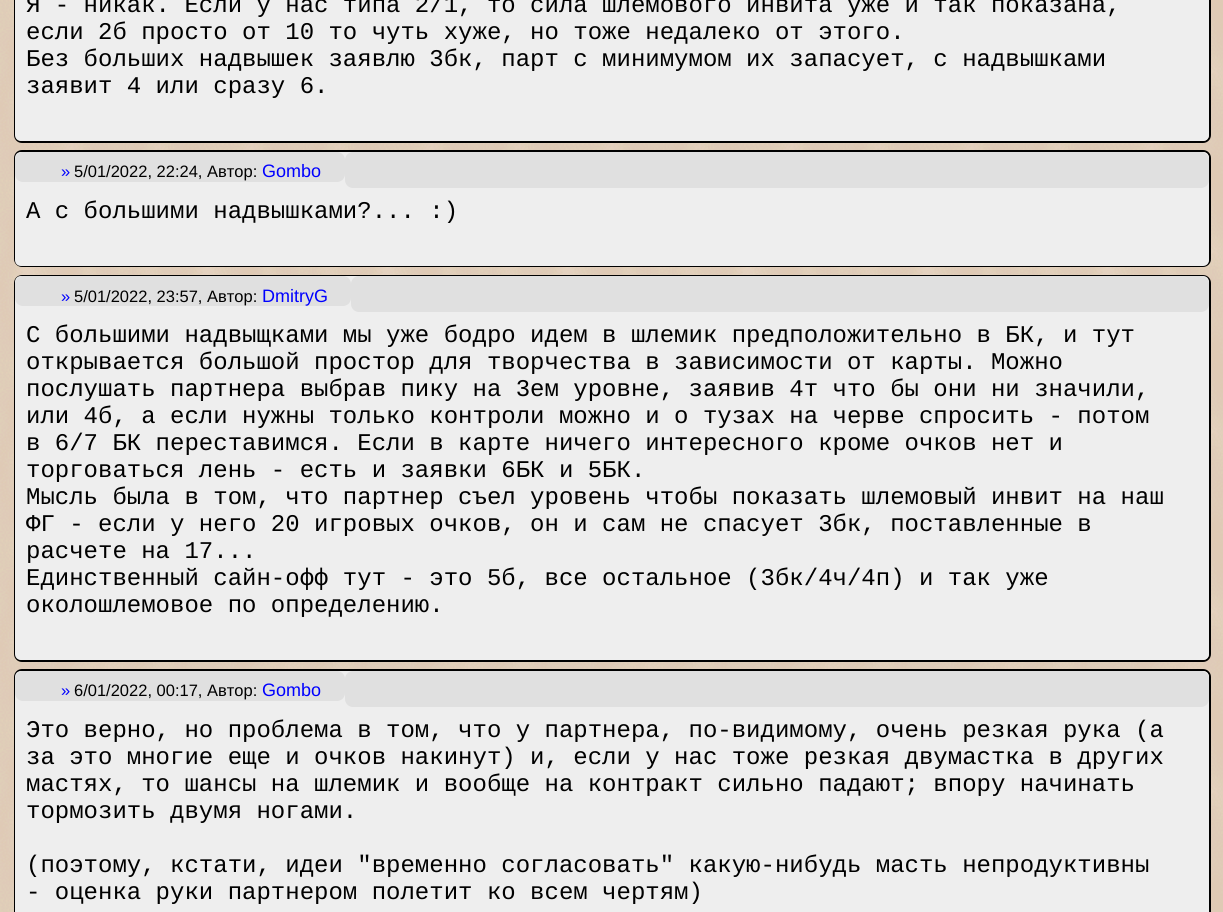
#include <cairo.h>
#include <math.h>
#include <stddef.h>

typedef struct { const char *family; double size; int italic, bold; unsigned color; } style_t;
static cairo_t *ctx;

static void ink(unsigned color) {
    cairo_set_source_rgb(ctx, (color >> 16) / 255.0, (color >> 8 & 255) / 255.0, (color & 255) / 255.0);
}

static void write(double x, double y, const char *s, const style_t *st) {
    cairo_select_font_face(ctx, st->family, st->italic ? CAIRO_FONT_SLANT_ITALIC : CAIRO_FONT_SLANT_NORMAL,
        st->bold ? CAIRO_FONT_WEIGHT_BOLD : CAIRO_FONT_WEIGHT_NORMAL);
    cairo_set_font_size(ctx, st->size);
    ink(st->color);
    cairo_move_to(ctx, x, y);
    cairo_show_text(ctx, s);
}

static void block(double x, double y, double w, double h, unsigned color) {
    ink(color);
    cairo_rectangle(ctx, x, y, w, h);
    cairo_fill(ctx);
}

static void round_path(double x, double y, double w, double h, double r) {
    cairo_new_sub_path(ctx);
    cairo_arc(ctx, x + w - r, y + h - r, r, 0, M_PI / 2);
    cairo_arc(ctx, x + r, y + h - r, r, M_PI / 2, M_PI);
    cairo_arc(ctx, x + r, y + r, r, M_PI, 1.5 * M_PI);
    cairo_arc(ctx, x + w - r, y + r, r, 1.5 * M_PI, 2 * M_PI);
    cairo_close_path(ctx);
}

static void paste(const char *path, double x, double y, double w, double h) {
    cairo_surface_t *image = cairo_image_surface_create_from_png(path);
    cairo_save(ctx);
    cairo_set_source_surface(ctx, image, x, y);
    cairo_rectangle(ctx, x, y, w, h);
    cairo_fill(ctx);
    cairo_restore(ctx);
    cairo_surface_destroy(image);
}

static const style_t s1 = {"Liberation Mono", 24, 0, 0, 0x000000};
static const style_t s2 = {"Liberation Sans", 16.5, 0, 0, 0x0000ff};
static const style_t s3 = {"Liberation Sans", 16.5, 0, 0, 0x000000};
static const style_t s4 = {"Liberation Sans", 18, 0, 0, 0x0000ff};

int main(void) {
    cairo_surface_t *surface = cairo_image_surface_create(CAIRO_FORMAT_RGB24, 1223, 912);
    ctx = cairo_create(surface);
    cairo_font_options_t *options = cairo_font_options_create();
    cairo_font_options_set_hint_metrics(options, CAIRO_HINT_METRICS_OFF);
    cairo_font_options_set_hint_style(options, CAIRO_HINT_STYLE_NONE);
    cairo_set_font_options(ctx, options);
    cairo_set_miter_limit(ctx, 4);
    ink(0xffffff);
    cairo_paint(ctx);
    paste("pic1.png", 0, 0, 1223, 912);
    round_path(15, -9, 1195, 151, 7);
    ink(0x000000);
    cairo_stroke(ctx);
    block(15, 0, 1194, 111, 0xeeeeee);
    write(26, 12, "Я - никак. Если у нас типа 2/1, то сила шлемового инвита уже и так показана,", &s1);
    write(26, 39, "если 2б просто от 10 то чуть хуже, но тоже недалеко от этого.", &s1);
    write(26, 66, "Без больших надвышек заявлю 3бк, парт с минимумом их запасует, с надвышками", &s1);
    write(26, 93, "заявит 4 или сразу 6.", &s1);
    ink(0xeeeeee);
    cairo_new_path(ctx);
    cairo_move_to(ctx, 15, 111);
    cairo_line_to(ctx, 1209, 111);
    cairo_line_to(ctx, 1209, 135);
    cairo_curve_to(ctx, 1209, 138.5, 1206.5, 141, 1203, 141);
    cairo_line_to(ctx, 21, 141);
    cairo_curve_to(ctx, 17.5, 141, 15, 138.5, 15, 135);
    cairo_close_path(ctx);
    cairo_fill(ctx);
    round_path(15, 151, 1195, 115, 7);
    ink(0x000000);
    cairo_stroke(ctx);
    ink(0xeeeeee);
    cairo_new_path(ctx);
    cairo_move_to(ctx, 21, 152);
    cairo_line_to(ctx, 1203, 152);
    cairo_curve_to(ctx, 1206.5, 152, 1209, 154.5, 1209, 158);
    cairo_line_to(ctx, 1209, 188);
    cairo_line_to(ctx, 15, 188);
    cairo_line_to(ctx, 15, 158);
    cairo_curve_to(ctx, 15, 154.5, 17.5, 152, 21, 152);
    cairo_close_path(ctx);
    cairo_fill(ctx);
    ink(0xe0e0e0);
    round_path(15, 152, 330, 30, 8);
    cairo_fill(ctx);
    write(61, 177, "»", &s2);
    write(74, 177, "5/01/2022, 22:24, Автор:", &s3);
    write(262, 177, "Gombo", &s4);
    ink(0xe0e0e0);
    round_path(345, 152, 864, 36, 8);
    cairo_fill(ctx);
    block(15, 188, 1194, 48, 0xeeeeee);
    write(26, 218, "А с большими надвышками?... :)", &s1);
    ink(0xeeeeee);
    cairo_new_path(ctx);
    cairo_move_to(ctx, 15, 236);
    cairo_line_to(ctx, 1209, 236);
    cairo_line_to(ctx, 1209, 260);
    cairo_curve_to(ctx, 1209, 263.5, 1206.5, 266, 1203, 266);
    cairo_line_to(ctx, 21, 266);
    cairo_curve_to(ctx, 17.5, 266, 15, 263.5, 15, 260);
    cairo_close_path(ctx);
    cairo_fill(ctx);
    round_path(15, 276, 1195, 385, 7);
    ink(0x000000);
    cairo_stroke(ctx);
    ink(0xeeeeee);
    cairo_new_path(ctx);
    cairo_move_to(ctx, 21, 276);
    cairo_line_to(ctx, 1203, 276);
    cairo_curve_to(ctx, 1206.5, 276, 1209, 278.5, 1209, 282);
    cairo_line_to(ctx, 1209, 312);
    cairo_line_to(ctx, 15, 312);
    cairo_line_to(ctx, 15, 282);
    cairo_curve_to(ctx, 15, 278.5, 17.5, 276, 21, 276);
    cairo_close_path(ctx);
    cairo_fill(ctx);
    ink(0xe0e0e0);
    round_path(15, 276, 336, 30, 8);
    cairo_fill(ctx);
    write(61, 302, "»", &s2);
    write(74, 302, "5/01/2022, 23:57, Автор:", &s3);
    write(262, 302, "DmitryG", &s4);
    ink(0xe0e0e0);
    round_path(351, 276, 858, 36, 8);
    cairo_fill(ctx);
    block(15, 312, 1194, 318, 0xeeeeee);
    write(26, 342, "С большими надвыщками мы уже бодро идем в шлемик предположительно в БК, и тут", &s1);
    write(26, 369, "открывается большой простор для творчества в зависимости от карты. Можно", &s1);
    write(26, 396, "послушать партнера выбрав пику на 3ем уровне, заявив 4т что бы они ни значили,", &s1);
    write(26, 423, "или 4б, а если нужны только контроли можно и о тузах на черве спросить - потом", &s1);
    write(26, 450, "в 6/7 БК переставимся. Если в карте ничего интересного кроме очков нет и", &s1);
    write(26, 477, "торговаться лень - есть и заявки 6БК и 5БК.", &s1);
    write(26, 504, "Мысль была в том, что партнер съел уровень чтобы показать шлемовый инвит на наш", &s1);
    write(26, 531, "ФГ - если у него 20 игровых очков, он и сам не спасует 3бк, поставленные в", &s1);
    write(26, 558, "расчете на 17...", &s1);
    write(26, 585, "Единственный сайн-офф тут - это 5б, все остальное (3бк/4ч/4п) и так уже", &s1);
    write(26, 612, "околошлемовое по определению.", &s1);
    ink(0xeeeeee);
    cairo_new_path(ctx);
    cairo_move_to(ctx, 15, 630);
    cairo_line_to(ctx, 1209, 630);
    cairo_line_to(ctx, 1209, 654);
    cairo_curve_to(ctx, 1209, 657.5, 1206.5, 660, 1203, 660);
    cairo_line_to(ctx, 21, 660);
    cairo_curve_to(ctx, 17.5, 660, 15, 657.5, 15, 654);
    cairo_close_path(ctx);
    cairo_fill(ctx);
    round_path(15, 670, 1195, 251, 7);
    ink(0x000000);
    cairo_stroke(ctx);
    ink(0xeeeeee);
    cairo_new_path(ctx);
    cairo_move_to(ctx, 21, 671);
    cairo_line_to(ctx, 1203, 671);
    cairo_curve_to(ctx, 1206.5, 671, 1209, 673.5, 1209, 677);
    cairo_line_to(ctx, 1209, 707);
    cairo_line_to(ctx, 15, 707);
    cairo_line_to(ctx, 15, 677);
    cairo_curve_to(ctx, 15, 673.5, 17.5, 671, 21, 671);
    cairo_close_path(ctx);
    cairo_fill(ctx);
    ink(0xe0e0e0);
    round_path(15, 671, 330, 30, 8);
    cairo_fill(ctx);
    write(61, 696, "»", &s2);
    write(74, 696, "6/01/2022, 00:17, Автор:", &s3);
    write(262, 696, "Gombo", &s4);
    ink(0xe0e0e0);
    round_path(345, 671, 864, 36, 8);
    cairo_fill(ctx);
    block(15, 707, 1194, 205, 0xeeeeee);
    write(26, 737, "Это верно, но проблема в том, что у партнера, по-видимому, очень резкая рука (а", &s1);
    write(26, 764, "за это многие еще и очков накинут) и, если у нас тоже резкая двумастка в других", &s1);
    write(26, 791, "мастях, то шансы на шлемик и вообще на контракт сильно падают; впору начинать", &s1);
    write(26, 818, "тормозить двумя ногами.", &s1);
    write(26, 872, "(поэтому, кстати, идеи \"временно согласовать\" какую-нибудь масть непродуктивны", &s1);
    write(26, 899, "- оценка руки партнером полетит ко всем чертям)", &s1);
    cairo_surface_write_to_png(surface, "screenshot.png");
    cairo_font_options_destroy(options);
    cairo_destroy(ctx);
    cairo_surface_destroy(surface);
    return 0;
}
